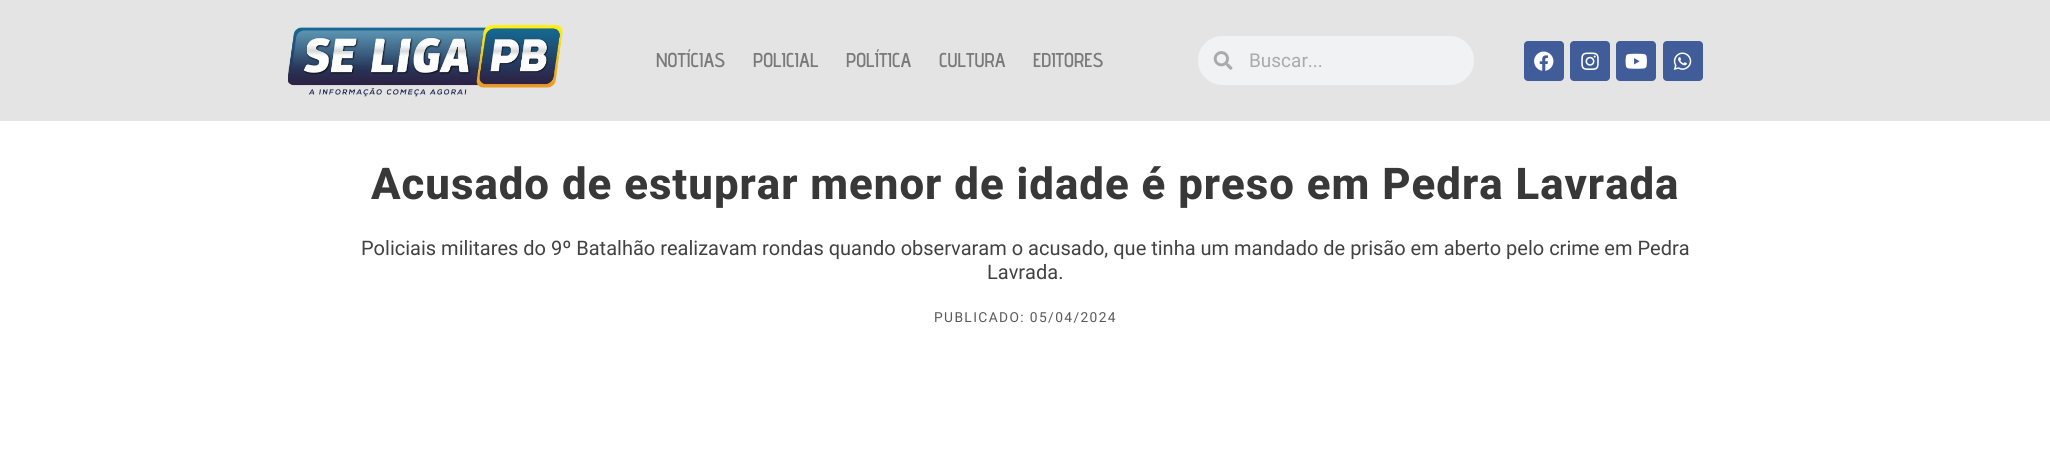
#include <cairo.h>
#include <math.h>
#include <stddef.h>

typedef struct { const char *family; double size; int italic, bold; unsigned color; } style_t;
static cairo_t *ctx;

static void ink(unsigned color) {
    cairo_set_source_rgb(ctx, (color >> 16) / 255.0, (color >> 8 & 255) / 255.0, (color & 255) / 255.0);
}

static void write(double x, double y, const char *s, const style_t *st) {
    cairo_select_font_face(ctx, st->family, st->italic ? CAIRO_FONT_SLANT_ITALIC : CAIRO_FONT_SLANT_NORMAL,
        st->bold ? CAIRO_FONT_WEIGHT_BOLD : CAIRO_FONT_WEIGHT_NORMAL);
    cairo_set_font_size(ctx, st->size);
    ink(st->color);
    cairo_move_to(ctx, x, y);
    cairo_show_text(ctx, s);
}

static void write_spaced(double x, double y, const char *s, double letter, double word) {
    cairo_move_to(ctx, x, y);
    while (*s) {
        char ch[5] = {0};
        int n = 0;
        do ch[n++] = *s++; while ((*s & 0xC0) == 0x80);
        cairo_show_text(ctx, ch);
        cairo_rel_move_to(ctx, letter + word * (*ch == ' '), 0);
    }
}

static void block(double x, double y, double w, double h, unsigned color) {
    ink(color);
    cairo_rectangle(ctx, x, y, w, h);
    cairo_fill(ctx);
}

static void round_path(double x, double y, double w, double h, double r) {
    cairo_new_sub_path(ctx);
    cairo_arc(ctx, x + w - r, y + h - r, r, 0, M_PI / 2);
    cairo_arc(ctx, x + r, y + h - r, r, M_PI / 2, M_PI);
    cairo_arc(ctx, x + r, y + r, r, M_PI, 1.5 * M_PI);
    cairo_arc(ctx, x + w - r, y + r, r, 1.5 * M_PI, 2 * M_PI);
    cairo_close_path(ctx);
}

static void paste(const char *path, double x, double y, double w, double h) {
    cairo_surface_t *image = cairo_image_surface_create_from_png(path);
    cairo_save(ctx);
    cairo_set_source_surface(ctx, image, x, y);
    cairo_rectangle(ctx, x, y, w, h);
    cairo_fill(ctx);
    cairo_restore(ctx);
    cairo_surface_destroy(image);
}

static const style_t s1 = {"Advent Pro SemiBold", 20, 0, 0, 0x7a7a7a};
static const style_t s2 = {"Roboto", 19, 0, 0, 0xaaaaaa};
static const style_t s3 = {"Roboto", 20, 0, 0, 0x424242};

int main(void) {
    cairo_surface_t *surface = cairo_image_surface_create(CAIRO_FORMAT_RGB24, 2050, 471);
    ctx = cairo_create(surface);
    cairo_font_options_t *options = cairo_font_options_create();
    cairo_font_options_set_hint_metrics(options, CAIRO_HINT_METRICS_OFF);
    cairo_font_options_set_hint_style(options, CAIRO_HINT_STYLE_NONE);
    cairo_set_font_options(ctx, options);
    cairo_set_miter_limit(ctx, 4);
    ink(0xffffff);
    cairo_paint(ctx);
    block(0, 0, 2050, 121, 0xe4e4e4);
    paste("pic1.png", 288, 25, 275, 72);
    write(656, 67, "NOTÍCIAS", &s1);
    write(753, 67, "POLICIAL", &s1);
    write(846, 67, "POLÍTICA", &s1);
    write(939, 67, "CULTURA", &s1);
    write(1033, 67, "EDITORES", &s1);
    ink(0xf1f2f3);
    round_path(1198, 36, 276, 49, 24.5);
    cairo_fill(ctx);
    paste("pic2.png", 1213, 51, 20, 19);
    write(1249, 67, "Buscar...", &s2);
    ink(0x405d99);
    round_path(1524, 41, 40, 40, 4);
    cairo_fill(ctx);
    paste("pic3.png", 1534, 51, 20, 20);
    round_path(1570, 41, 40, 40, 4);
    cairo_fill(ctx);
    paste("pic4.png", 1581, 52, 18, 18);
    round_path(1616, 41, 40, 40, 4);
    cairo_fill(ctx);
    paste("pic5.png", 1625, 53, 22, 16);
    round_path(1663, 41, 40, 40, 4);
    cairo_fill(ctx);
    paste("pic6.png", 1673, 52, 19, 18);
    cairo_select_font_face(ctx, "Roboto ExtraBold", CAIRO_FONT_SLANT_NORMAL, CAIRO_FONT_WEIGHT_NORMAL);
    cairo_set_font_size(ctx, 43.75);
    ink(0x383838);
    write_spaced(371, 199, "Acusado de estuprar menor de idade é preso em Pedra Lavrada", 1, 0);
    write(361, 255, "Policiais militares do 9º Batalhão realizavam rondas quando observaram o acusado, que tinha um mandado de prisão em aberto pelo crime em Pedra", &s3);
    write(987, 279, "Lavrada.", &s3);
    cairo_set_font_size(ctx, 13.75);
    ink(0x595959);
    write_spaced(934, 322, "PUBLICADO: 05/04/2024", 1.4, 0);
    cairo_surface_write_to_png(surface, "screenshot.png");
    cairo_font_options_destroy(options);
    cairo_destroy(ctx);
    cairo_surface_destroy(surface);
    return 0;
}
